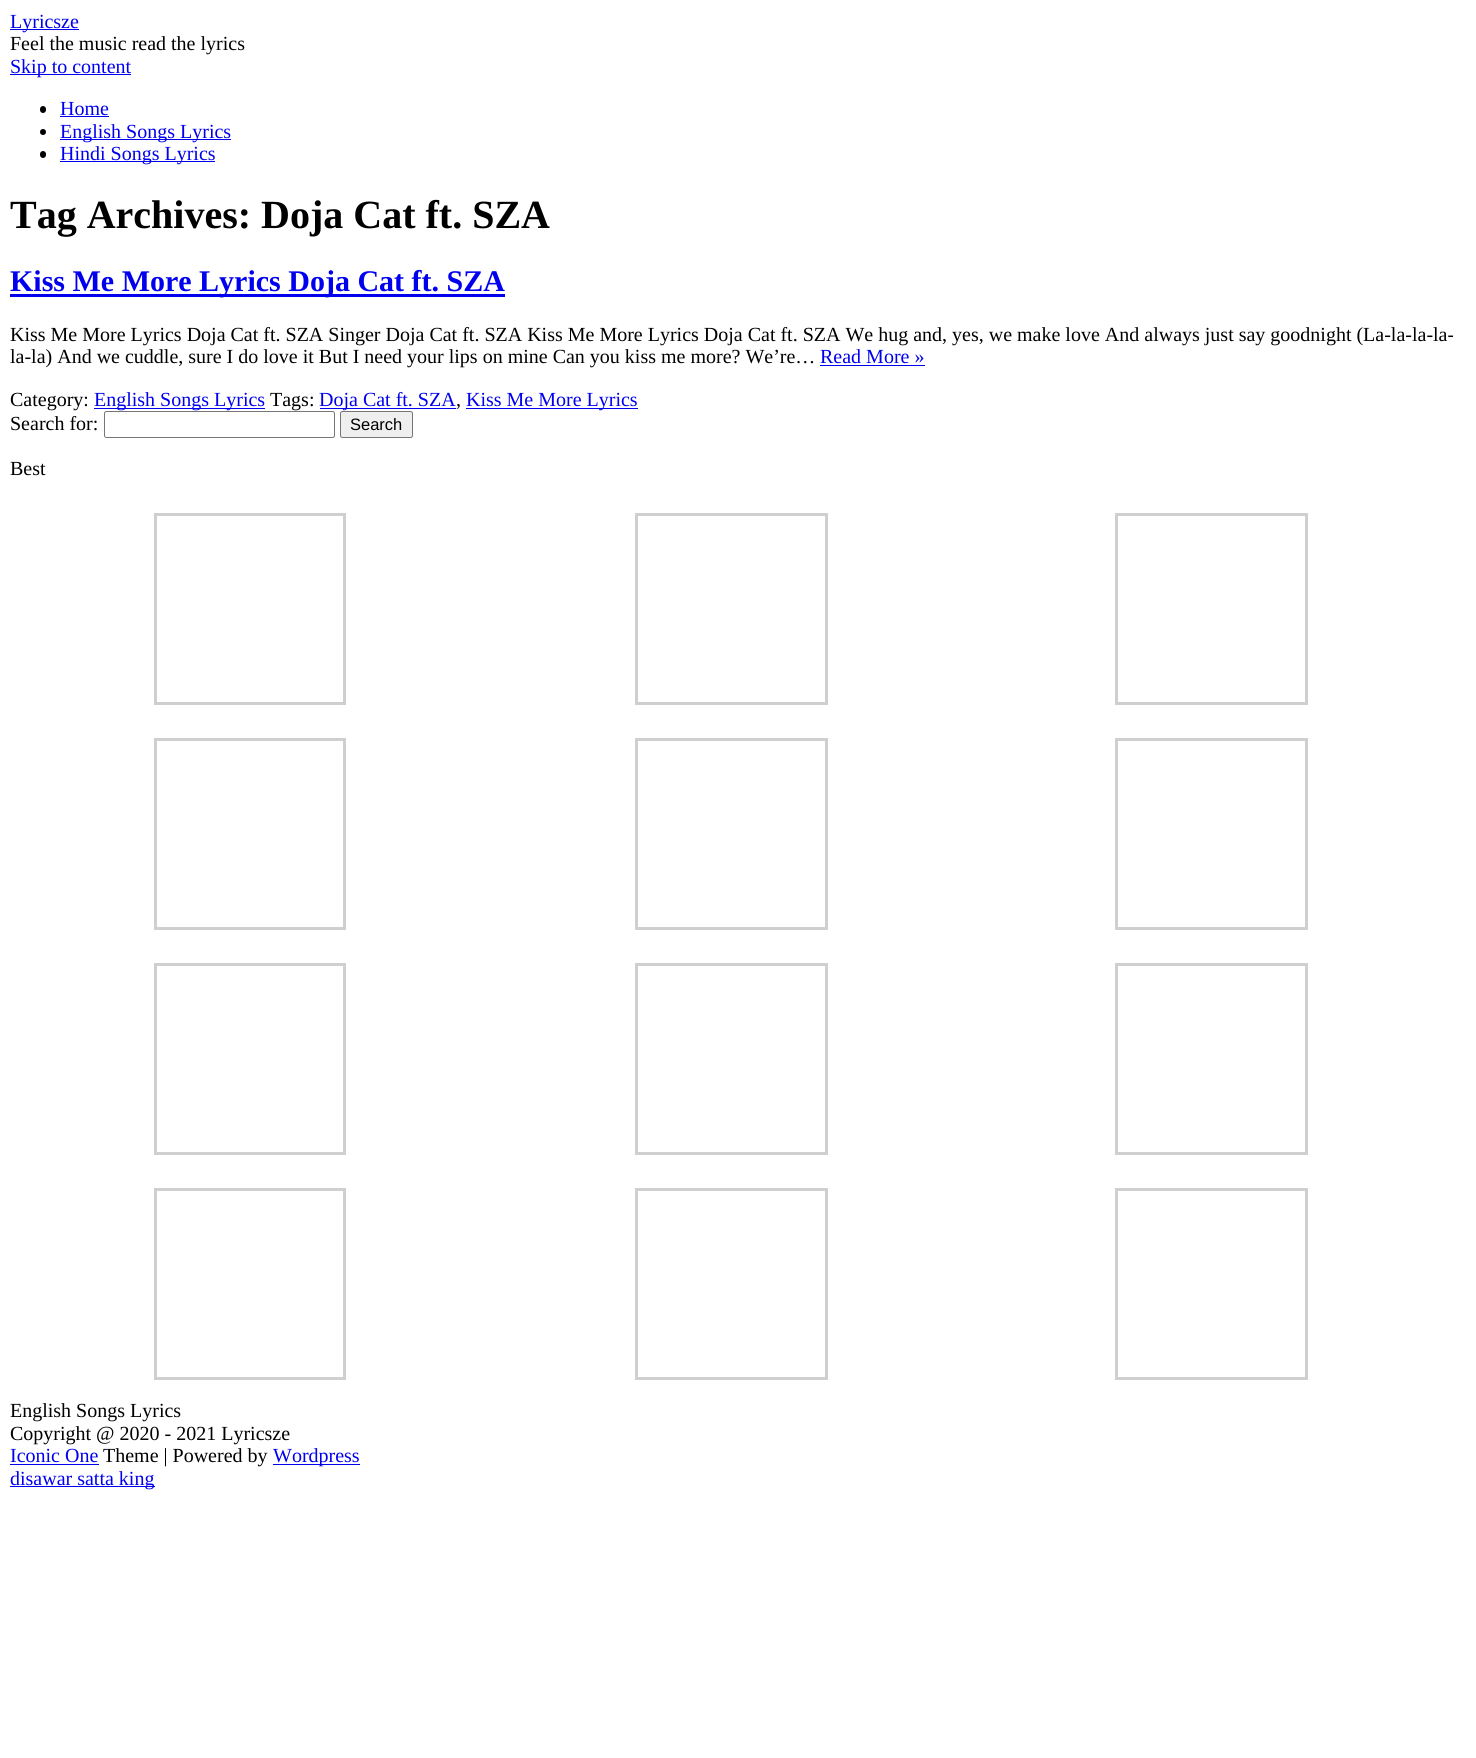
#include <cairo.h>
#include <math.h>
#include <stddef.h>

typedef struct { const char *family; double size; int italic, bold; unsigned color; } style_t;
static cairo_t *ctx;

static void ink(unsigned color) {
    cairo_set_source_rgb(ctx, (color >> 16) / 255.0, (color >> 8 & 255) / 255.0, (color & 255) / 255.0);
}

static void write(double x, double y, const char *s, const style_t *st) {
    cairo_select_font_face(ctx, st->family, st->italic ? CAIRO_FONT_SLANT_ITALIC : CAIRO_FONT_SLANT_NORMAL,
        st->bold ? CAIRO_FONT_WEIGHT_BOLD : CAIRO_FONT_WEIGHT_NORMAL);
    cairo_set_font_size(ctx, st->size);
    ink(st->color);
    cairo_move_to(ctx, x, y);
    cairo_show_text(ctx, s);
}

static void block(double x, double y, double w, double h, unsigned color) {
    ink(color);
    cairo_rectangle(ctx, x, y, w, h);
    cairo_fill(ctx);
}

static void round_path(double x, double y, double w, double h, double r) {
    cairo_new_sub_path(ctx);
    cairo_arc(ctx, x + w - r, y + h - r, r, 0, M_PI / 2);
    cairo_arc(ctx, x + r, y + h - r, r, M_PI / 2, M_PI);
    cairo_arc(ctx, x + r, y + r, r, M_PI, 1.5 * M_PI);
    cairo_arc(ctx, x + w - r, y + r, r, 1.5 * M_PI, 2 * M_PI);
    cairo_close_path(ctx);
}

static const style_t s1 = {"Liberation Serif", 20, 0, 0, 0x0000ee};
static const style_t s2 = {"Liberation Serif", 20, 0, 0, 0x000000};
static const style_t s3 = {"Liberation Serif", 40, 0, 1, 0x000000};
static const style_t s4 = {"Liberation Serif", 30, 0, 1, 0x0000ee};
static const style_t s5 = {"Liberation Sans", 16.5, 0, 0, 0x000000};

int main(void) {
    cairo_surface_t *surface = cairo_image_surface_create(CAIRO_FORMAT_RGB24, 1476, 1758);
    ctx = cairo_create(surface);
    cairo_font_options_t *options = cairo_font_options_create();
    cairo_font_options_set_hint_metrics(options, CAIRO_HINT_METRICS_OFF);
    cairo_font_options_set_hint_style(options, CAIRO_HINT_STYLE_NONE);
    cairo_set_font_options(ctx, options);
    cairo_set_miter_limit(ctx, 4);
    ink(0xffffff);
    cairo_paint(ctx);
    block(10, 29, 69, 1, 0x0000ee);
    write(10, 28, "Lyricsze", &s1);
    write(10, 50, "Feel the music read the lyrics", &s2);
    block(10, 74, 121, 1, 0x0000ee);
    write(10, 73, "Skip to content", &s1);
    ink(0x000000);
    round_path(40, 106, 6, 7, 3);
    cairo_fill(ctx);
    write(60, 115, "Home", &s1);
    block(60, 116, 49, 1, 0x0000ee);
    ink(0x000000);
    cairo_new_path(ctx);
    cairo_arc(ctx, 43, 132, 3, 0, 2 * M_PI);
    cairo_fill(ctx);
    block(60, 139, 171, 1, 0x0000ee);
    write(60, 138, "English Songs Lyrics", &s1);
    ink(0x000000);
    round_path(40, 151, 6, 7, 3);
    cairo_fill(ctx);
    block(60, 161, 155, 1, 0x0000ee);
    write(60, 160, "Hindi Songs Lyrics", &s1);
    write(10, 228, "Tag Archives: Doja Cat ft. SZA", &s3);
    block(10, 294, 495, 3, 0x0000ee);
    write(10, 291, "Kiss Me More Lyrics Doja Cat ft. SZA", &s4);
    write(10, 341, "Kiss Me More Lyrics Doja Cat ft. SZA Singer Doja Cat ft. SZA Kiss Me More Lyrics Doja Cat ft. SZA We hug and, yes, we make love And always just say goodnight (La-la-la-la-", &s2);
    write(10, 363, "la-la) And we cuddle, sure I do love it But I need your lips on mine Can you kiss me more? We’re…", &s2);
    write(820, 363, "Read More »", &s1);
    block(820, 365, 105, 1, 0x0000ee);
    write(10, 406, "Category:", &s2);
    block(94, 408, 171, 1, 0x0000ee);
    write(94, 406, "English Songs Lyrics", &s1);
    write(270, 406, "Tags:", &s2);
    block(320, 408, 136, 1, 0x0000ee);
    write(319, 406, "Doja Cat ft. SZA", &s1);
    write(456, 406, ",", &s2);
    block(466, 408, 172, 1, 0x0000ee);
    write(466, 406, "Kiss Me More Lyrics", &s1);
    write(10, 430, "Search for:", &s2);
    round_path(104.5, 411.5, 230, 26, 2);
    ink(0x767676);
    cairo_set_line_width(ctx, 1);
    cairo_stroke(ctx);
    ink(0xefefef);
    round_path(340.5, 411.5, 72, 26, 2);
    cairo_fill_preserve(ctx);
    ink(0x767676);
    cairo_stroke(ctx);
    write(350, 430, "Search", &s5);
    write(10, 475, "Best", &s2);
    cairo_rectangle(ctx, 155.5, 514.5, 189, 189);
    ink(0xcfcfcf);
    cairo_set_line_width(ctx, 3);
    cairo_stroke(ctx);
    cairo_rectangle(ctx, 636.5, 514.5, 190, 189);
    cairo_stroke(ctx);
    cairo_rectangle(ctx, 1116.5, 514.5, 190, 189);
    cairo_stroke(ctx);
    cairo_rectangle(ctx, 155.5, 739.5, 189, 189);
    cairo_stroke(ctx);
    cairo_rectangle(ctx, 636.5, 739.5, 190, 189);
    cairo_stroke(ctx);
    cairo_rectangle(ctx, 1116.5, 739.5, 190, 189);
    cairo_stroke(ctx);
    cairo_rectangle(ctx, 155.5, 964.5, 189, 189);
    cairo_stroke(ctx);
    cairo_rectangle(ctx, 636.5, 964.5, 190, 189);
    cairo_stroke(ctx);
    cairo_rectangle(ctx, 1116.5, 964.5, 190, 189);
    cairo_stroke(ctx);
    cairo_rectangle(ctx, 155.5, 1189.5, 189, 189);
    cairo_stroke(ctx);
    cairo_rectangle(ctx, 636.5, 1189.5, 190, 189);
    cairo_stroke(ctx);
    cairo_rectangle(ctx, 1116.5, 1189.5, 190, 189);
    cairo_stroke(ctx);
    write(10, 1417, "English Songs Lyrics", &s2);
    write(10, 1440, "Copyright @ 2020 - 2021 Lyricsze", &s2);
    write(10, 1462, "Iconic One", &s1);
    block(10, 1464, 89, 1, 0x0000ee);
    write(103, 1462, "Theme | Powered by", &s2);
    block(273, 1464, 87, 1, 0x0000ee);
    write(273, 1462, "Wordpress", &s1);
    block(10, 1486, 145, 1, 0x0000ee);
    write(10, 1485, "disawar satta king", &s1);
    cairo_surface_write_to_png(surface, "screenshot.png");
    cairo_font_options_destroy(options);
    cairo_destroy(ctx);
    cairo_surface_destroy(surface);
    return 0;
}
